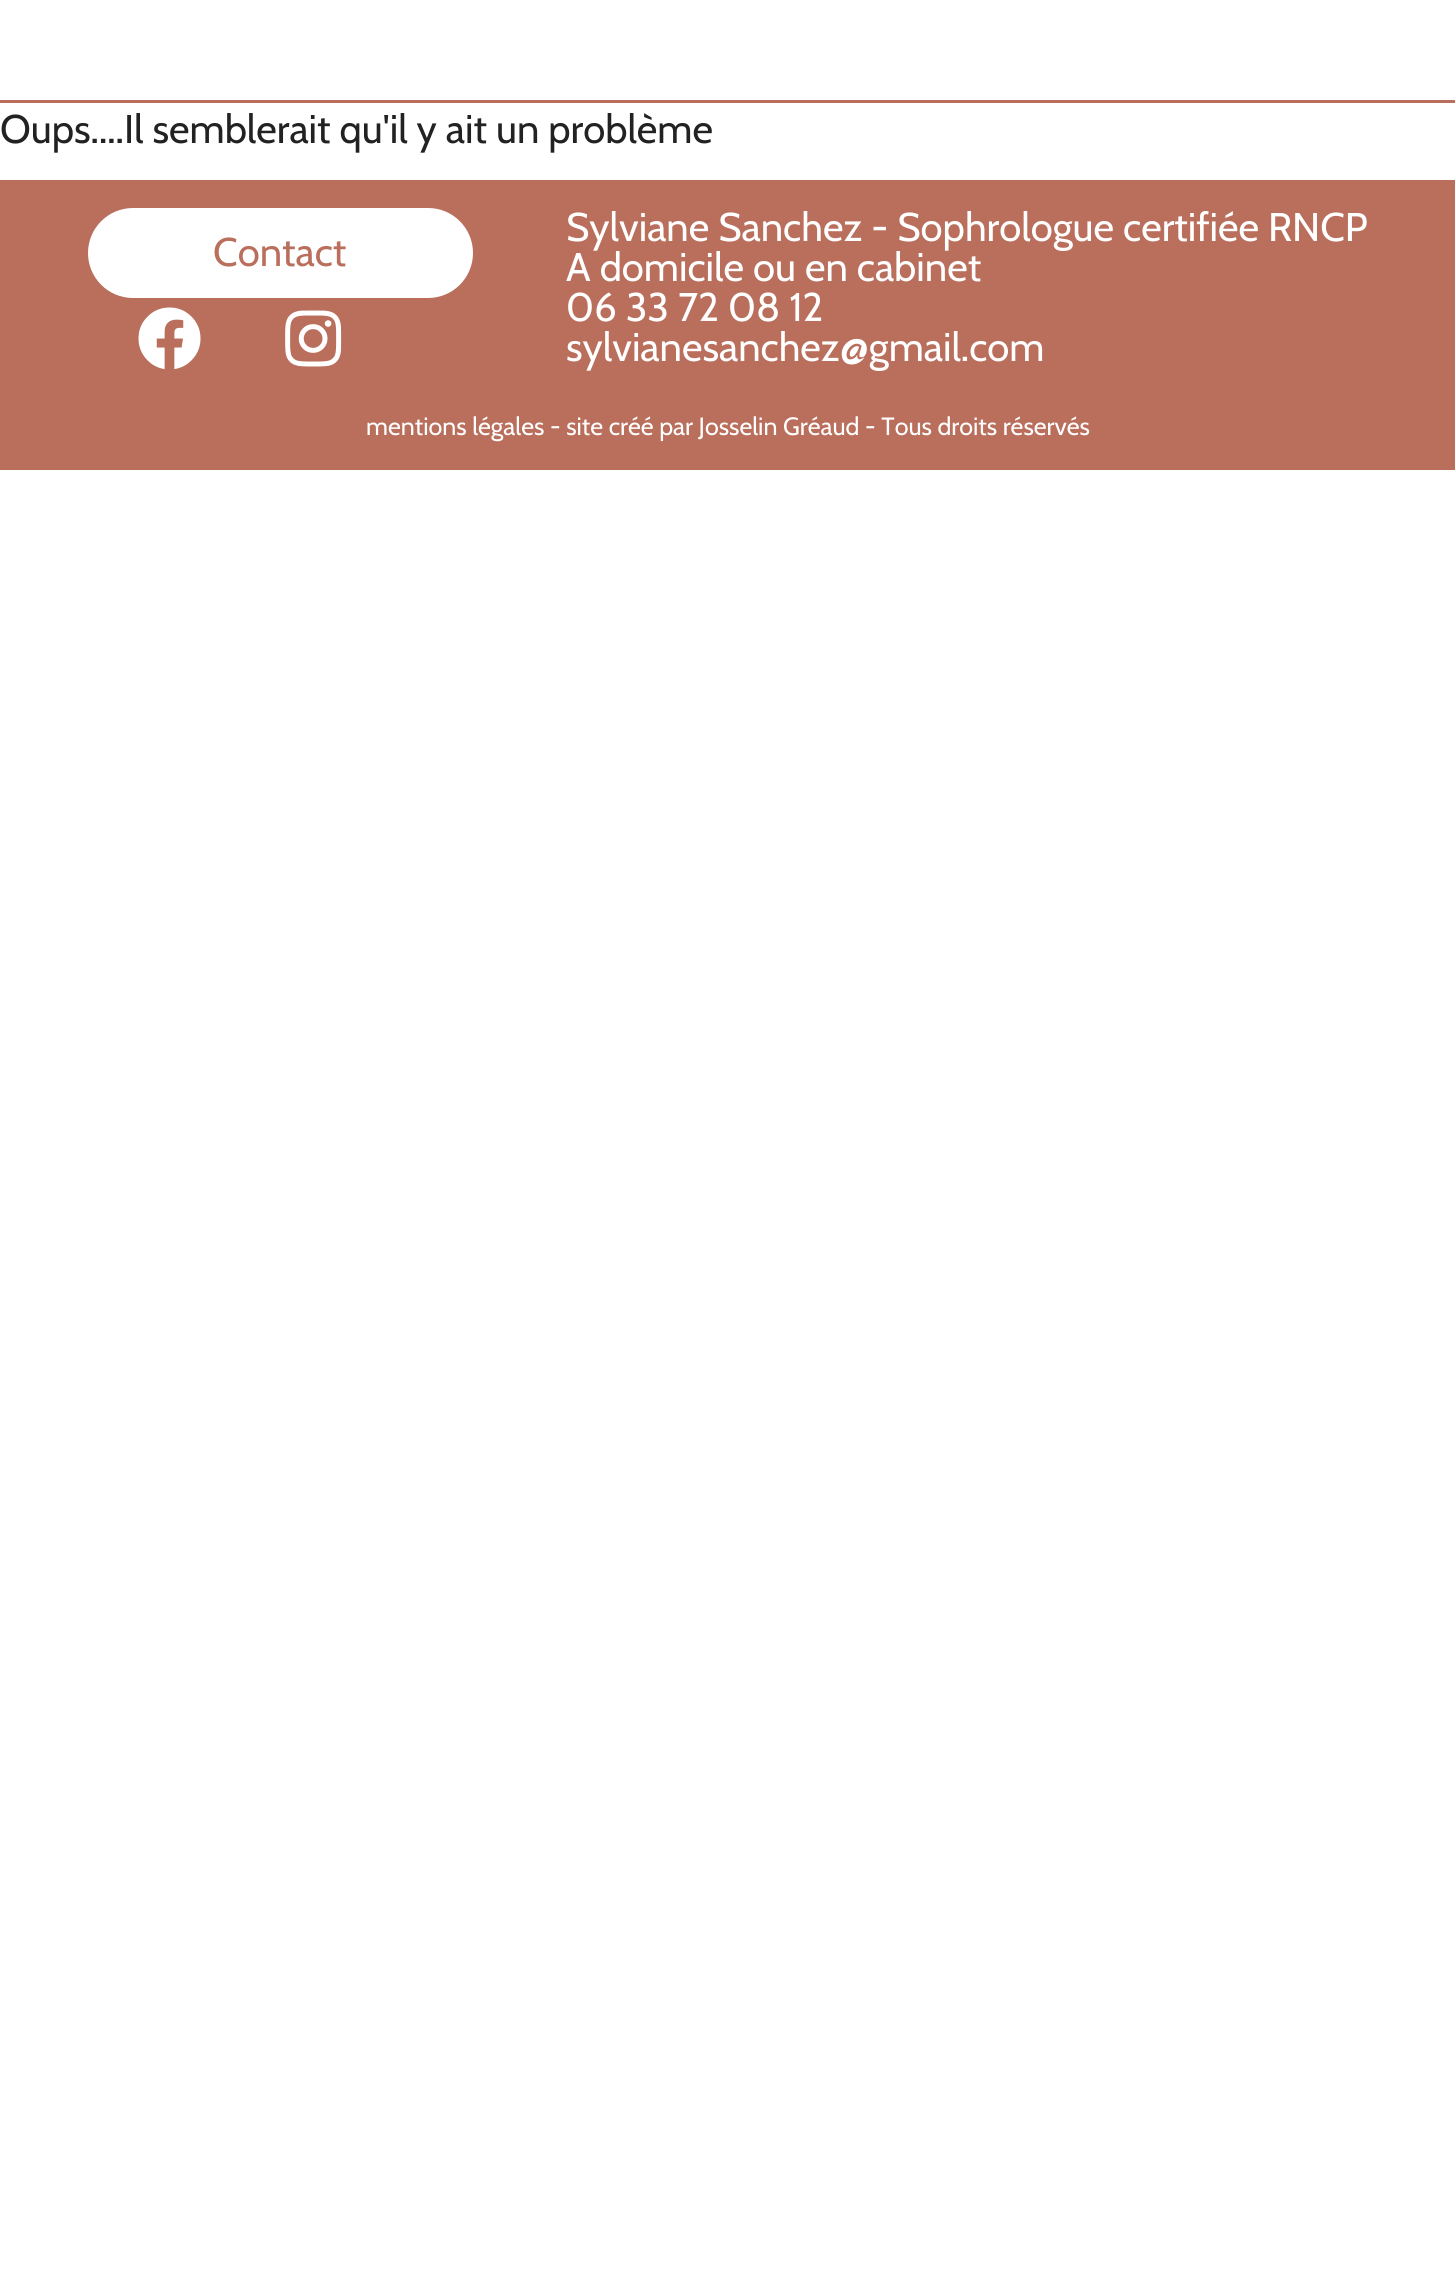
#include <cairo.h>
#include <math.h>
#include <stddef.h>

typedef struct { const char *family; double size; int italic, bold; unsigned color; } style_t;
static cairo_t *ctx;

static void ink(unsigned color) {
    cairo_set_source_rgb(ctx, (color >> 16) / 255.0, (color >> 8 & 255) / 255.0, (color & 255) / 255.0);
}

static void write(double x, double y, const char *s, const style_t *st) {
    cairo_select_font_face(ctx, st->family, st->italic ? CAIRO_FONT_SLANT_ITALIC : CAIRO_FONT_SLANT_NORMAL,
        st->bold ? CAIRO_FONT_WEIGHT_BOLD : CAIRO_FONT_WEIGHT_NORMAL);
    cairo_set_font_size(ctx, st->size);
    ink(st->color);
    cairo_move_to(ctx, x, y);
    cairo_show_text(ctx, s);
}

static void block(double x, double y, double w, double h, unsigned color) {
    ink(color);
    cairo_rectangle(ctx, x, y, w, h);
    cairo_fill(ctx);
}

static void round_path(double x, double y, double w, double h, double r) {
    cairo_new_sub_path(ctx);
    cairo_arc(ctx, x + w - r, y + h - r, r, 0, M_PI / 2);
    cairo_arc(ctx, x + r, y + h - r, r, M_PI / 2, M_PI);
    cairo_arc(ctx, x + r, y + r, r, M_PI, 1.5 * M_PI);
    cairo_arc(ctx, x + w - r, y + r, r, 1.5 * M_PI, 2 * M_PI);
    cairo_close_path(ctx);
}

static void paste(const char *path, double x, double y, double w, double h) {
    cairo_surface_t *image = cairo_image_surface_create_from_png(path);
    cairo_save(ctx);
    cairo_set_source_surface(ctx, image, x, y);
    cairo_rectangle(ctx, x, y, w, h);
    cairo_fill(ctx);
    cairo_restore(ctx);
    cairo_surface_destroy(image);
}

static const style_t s1 = {"Cabin", 40, 0, 0, 0x222222};
static const style_t s2 = {"Cabin", 40, 0, 0, 0xba6e5c};
static const style_t s3 = {"Cabin", 40, 0, 0, 0xffffff};
static const style_t s4 = {"Cabin", 25, 0, 0, 0xffffff};

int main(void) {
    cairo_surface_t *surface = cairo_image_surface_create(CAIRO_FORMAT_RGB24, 1455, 2281);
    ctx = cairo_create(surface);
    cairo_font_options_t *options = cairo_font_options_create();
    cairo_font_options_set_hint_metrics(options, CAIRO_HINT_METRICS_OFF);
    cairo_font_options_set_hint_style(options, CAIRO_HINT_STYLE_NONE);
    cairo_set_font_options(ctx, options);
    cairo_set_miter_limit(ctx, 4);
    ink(0xffffff);
    cairo_paint(ctx);
    block(0, 100, 1455, 3, 0xba6e5c);
    write(0, 143, "Oups....Il semblerait qu'il y ait un problème", &s1);
    block(0, 180, 1455, 290, 0xba6e5c);
    ink(0xffffff);
    round_path(88, 208, 385, 90, 45);
    cairo_fill(ctx);
    write(213, 266, "Contact", &s2);
    paste("pic1.png", 138, 307, 63, 63);
    paste("pic2.png", 285, 310, 57, 57);
    write(566, 241, "Sylviane Sanchez - Sophrologue certifiée RNCP", &s3);
    write(566, 281, "A domicile ou en cabinet", &s3);
    write(566, 321, "06 33 72 08 12", &s3);
    write(566, 361, "sylvianesanchez@gmail.com", &s3);
    write(366, 435, "mentions légales - site créé par Josselin Gréaud - Tous droits réservés", &s4);
    cairo_surface_write_to_png(surface, "screenshot.png");
    cairo_font_options_destroy(options);
    cairo_destroy(ctx);
    cairo_surface_destroy(surface);
    return 0;
}
